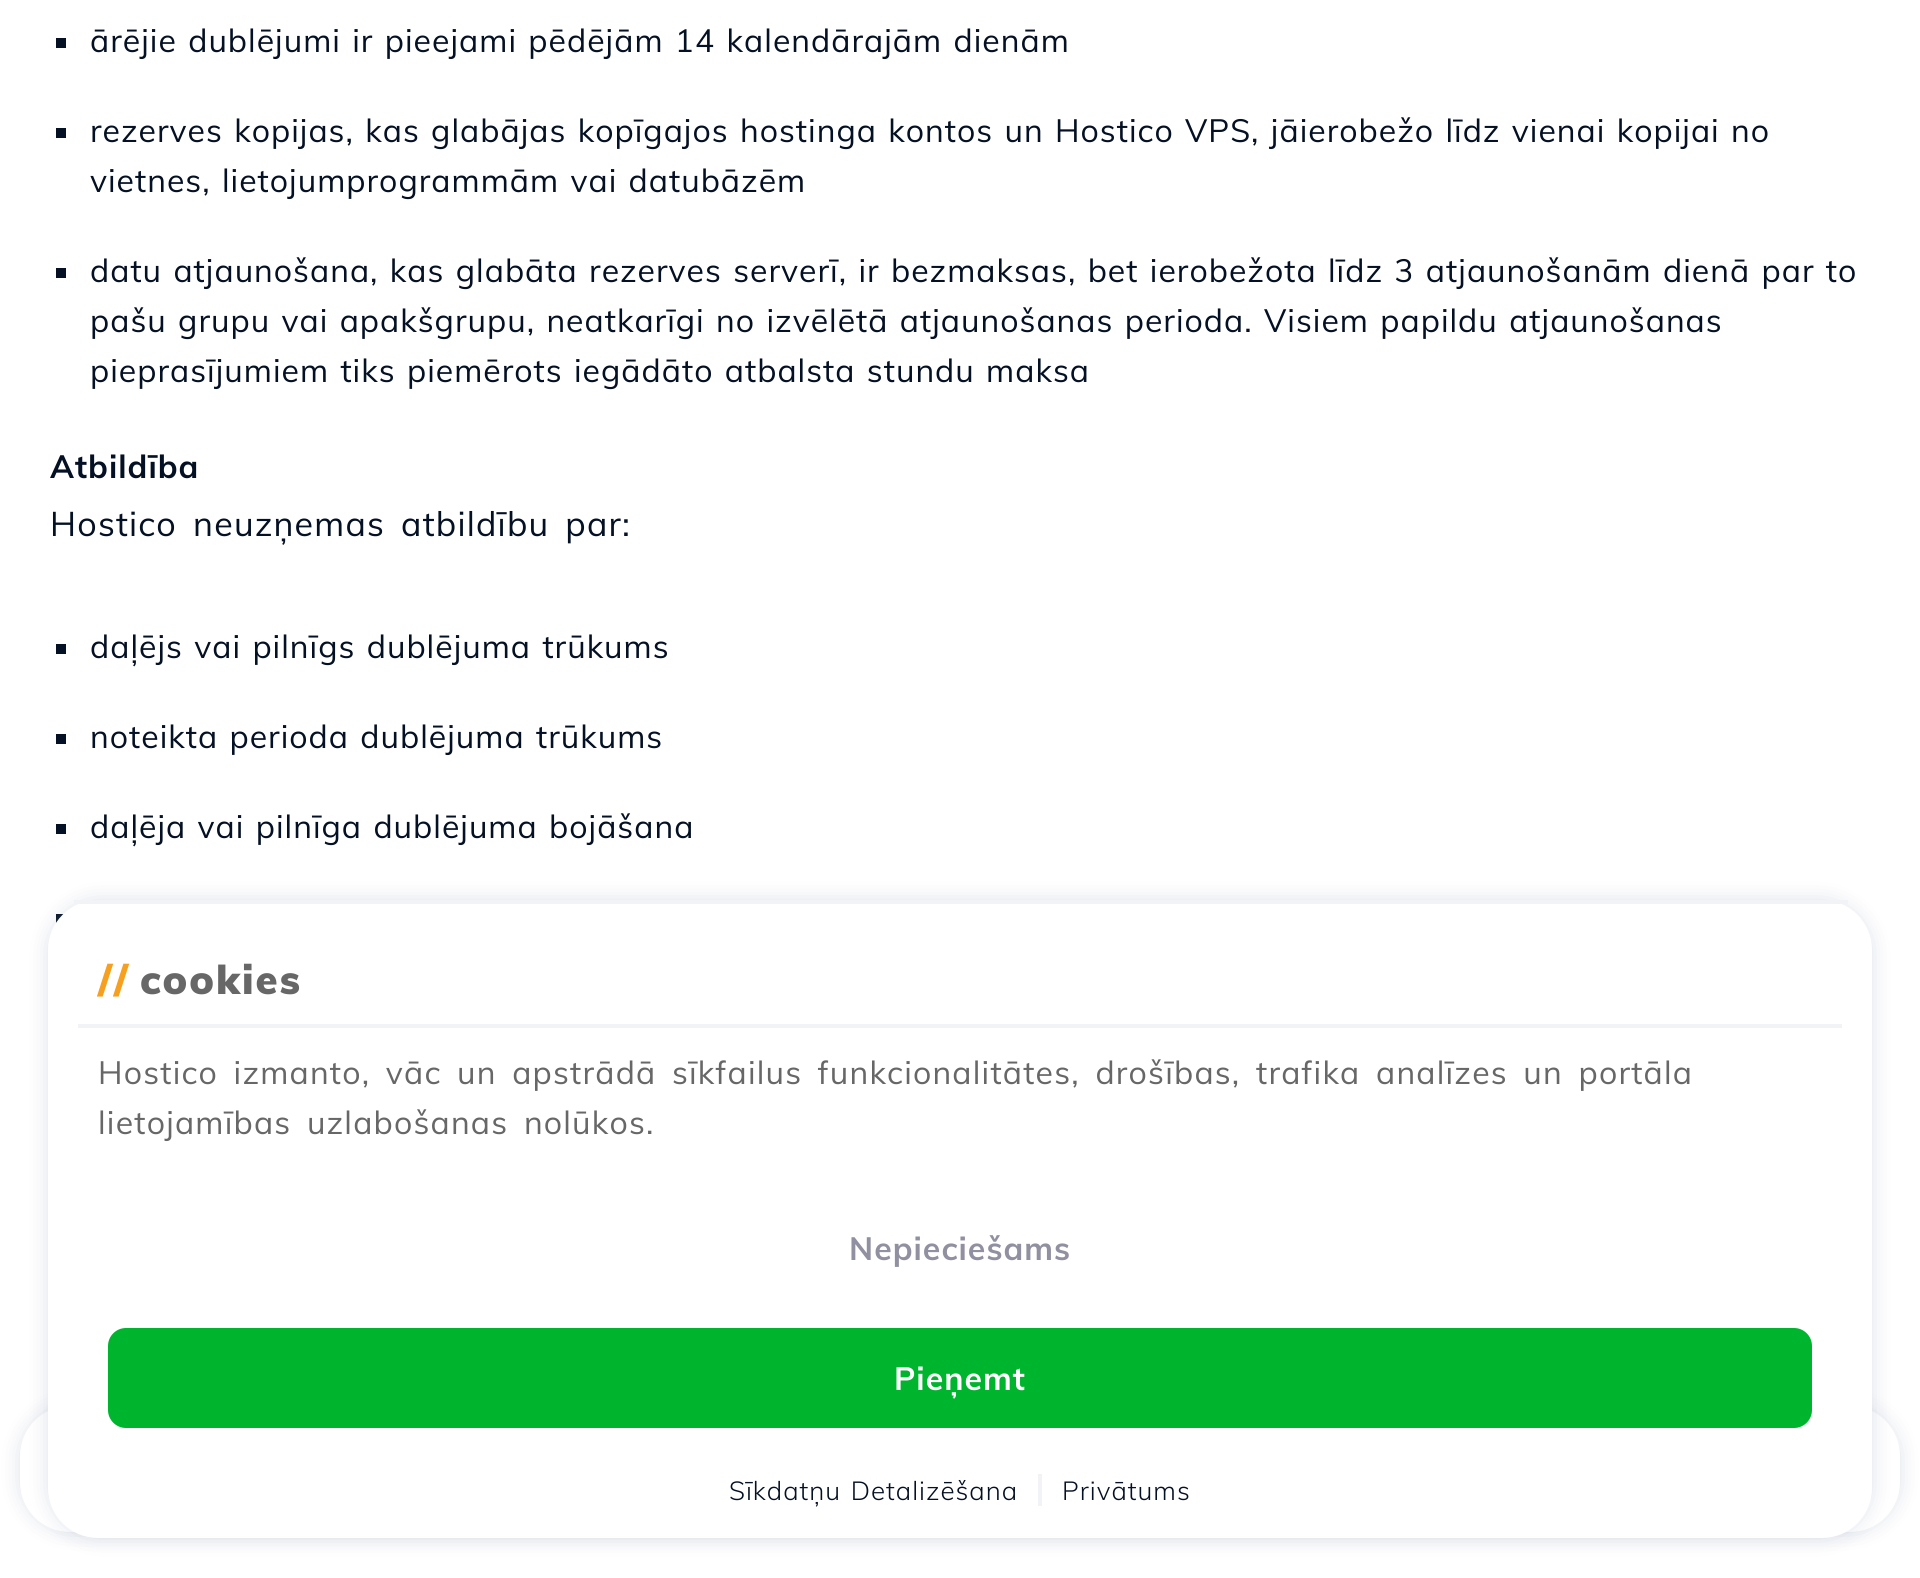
#include <cairo.h>
#include <math.h>
#include <stddef.h>

static cairo_t *ctx;

static void ink(unsigned color) {
    cairo_set_source_rgb(ctx, (color >> 16) / 255.0, (color >> 8 & 255) / 255.0, (color & 255) / 255.0);
}

static void write_spaced(double x, double y, const char *s, double letter, double word) {
    cairo_move_to(ctx, x, y);
    while (*s) {
        char ch[5] = {0};
        int n = 0;
        do ch[n++] = *s++; while ((*s & 0xC0) == 0x80);
        cairo_show_text(ctx, ch);
        cairo_rel_move_to(ctx, letter + word * (*ch == ' '), 0);
    }
}

static void block(double x, double y, double w, double h, unsigned color) {
    ink(color);
    cairo_rectangle(ctx, x, y, w, h);
    cairo_fill(ctx);
}

static void round_path(double x, double y, double w, double h, double r) {
    cairo_new_sub_path(ctx);
    cairo_arc(ctx, x + w - r, y + h - r, r, 0, M_PI / 2);
    cairo_arc(ctx, x + r, y + h - r, r, M_PI / 2, M_PI);
    cairo_arc(ctx, x + r, y + r, r, M_PI, 1.5 * M_PI);
    cairo_arc(ctx, x + w - r, y + r, r, 1.5 * M_PI, 2 * M_PI);
    cairo_close_path(ctx);
}

static void blur_box(double x, double y, double w, double h, double r, double blur, double alpha) {
    cairo_push_group_with_content(ctx, CAIRO_CONTENT_ALPHA);
    cairo_set_operator(ctx, CAIRO_OPERATOR_SOURCE);
    for (int i = 15; i >= -15 && fmin(w, h) + blur * i / 3 > 0; i -= 2) {
        double e = blur * i / 6;
        cairo_set_source_rgba(ctx, 0, 0, 0, alpha * erfc((i - 1) / 8.5) / 2);
        round_path(x - e, y - e, w + 2 * e, h + 2 * e, fmax(0, fmin(r + e + blur * .6, fmin(w, h) / 2 + e)));
        cairo_fill(ctx);
    }
    cairo_pattern_t *soft = cairo_pop_group(ctx);
    cairo_mask(ctx, soft);
    cairo_pattern_destroy(soft);
}

int main(void) {
    cairo_surface_t *surface = cairo_image_surface_create(CAIRO_FORMAT_RGB24, 1920, 1578);
    ctx = cairo_create(surface);
    cairo_font_options_t *options = cairo_font_options_create();
    cairo_font_options_set_hint_metrics(options, CAIRO_HINT_METRICS_OFF);
    cairo_font_options_set_hint_style(options, CAIRO_HINT_STYLE_NONE);
    cairo_set_font_options(ctx, options);
    cairo_set_miter_limit(ctx, 4);
    ink(0xffffff);
    cairo_paint(ctx);
    block(56, 38, 10, 10, 0x041023);
    cairo_select_font_face(ctx, "Mulish", CAIRO_FONT_SLANT_NORMAL, CAIRO_FONT_WEIGHT_NORMAL);
    cairo_set_font_size(ctx, 32);
    write_spaced(90, 52, "ārējie dublējumi ir pieejami pēdējām 14 kalendārajām dienām", 1, 2);
    block(56, 128, 10, 10, 0x041023);
    write_spaced(90, 142, "rezerves kopijas, kas glabājas kopīgajos hostinga kontos un Hostico VPS, jāierobežo līdz vienai kopijai no", 1, 2);
    write_spaced(90, 192, "vietnes, lietojumprogrammām vai datubāzēm", 1, 2);
    block(56, 268, 10, 10, 0x041023);
    write_spaced(90, 282, "datu atjaunošana, kas glabāta rezerves serverī, ir bezmaksas, bet ierobežota līdz 3 atjaunošanām dienā par to", 1, 2);
    write_spaced(90, 332, "pašu grupu vai apakšgrupu, neatkarīgi no izvēlētā atjaunošanas perioda. Visiem papildu atjaunošanas", 1, 2);
    write_spaced(90, 382, "pieprasījumiem tiks piemērots iegādāto atbalsta stundu maksa", 1, 2);
    cairo_select_font_face(ctx, "Mulish", CAIRO_FONT_SLANT_NORMAL, CAIRO_FONT_WEIGHT_BOLD);
    write_spaced(50, 478, "Atbildība", 1, 0);
    cairo_select_font_face(ctx, "Mulish", CAIRO_FONT_SLANT_NORMAL, CAIRO_FONT_WEIGHT_NORMAL);
    cairo_set_font_size(ctx, 34);
    write_spaced(50, 536, "Hostico neuzņemas atbildību par:", 1.2, 6);
    block(56, 644, 10, 10, 0x041023);
    cairo_set_font_size(ctx, 32);
    write_spaced(90, 658, "daļējs vai pilnīgs dublējuma trūkums", 1, 2);
    block(56, 734, 10, 10, 0x041023);
    write_spaced(90, 748, "noteikta perioda dublējuma trūkums", 1, 2);
    block(56, 824, 10, 10, 0x041023);
    write_spaced(90, 838, "daļēja vai pilnīga dublējuma bojāšana", 1, 2);
    block(56, 914, 8, 9, 0x041023);
    ink(0x8e9eb8);
    blur_box(20, 1406, 1880, 126, 50, 10, 0.3);
    ink(0xffffff);
    round_path(20, 1406, 1880, 126, 50);
    cairo_fill(ctx);
    ink(0x8e9eb8);
    blur_box(48, 900, 1824, 638, 50, 10, 0.3);
    ink(0xffffff);
    round_path(48, 900, 1824, 638, 50);
    cairo_fill(ctx);
    block(74, 900, 1774, 4, 0xf1f3f7);
    cairo_select_font_face(ctx, "Mulish Black", CAIRO_FONT_SLANT_NORMAL, CAIRO_FONT_WEIGHT_NORMAL);
    cairo_set_font_size(ctx, 40);
    ink(0xf79f1f);
    write_spaced(98, 994, "//", 2, 0);
    ink(0x676767);
    write_spaced(140, 994, "cookies", 2, 0);
    block(78, 1024, 1764, 4, 0xf1f3f7);
    cairo_select_font_face(ctx, "Mulish", CAIRO_FONT_SLANT_NORMAL, CAIRO_FONT_WEIGHT_NORMAL);
    cairo_set_font_size(ctx, 32);
    ink(0x676767);
    write_spaced(98, 1084, "Hostico izmanto, vāc un apstrādā sīkfailus funkcionalitātes, drošības, trafika analīzes un portāla", 1.2, 6);
    write_spaced(98, 1134, "lietojamības uzlabošanas nolūkos.", 1.2, 6);
    cairo_select_font_face(ctx, "Mulish", CAIRO_FONT_SLANT_NORMAL, CAIRO_FONT_WEIGHT_BOLD);
    ink(0x9090a0);
    write_spaced(849, 1260, "Nepieciešams", 1, 0);
    ink(0x00b52e);
    round_path(108, 1328, 1704, 100, 18);
    cairo_fill(ctx);
    ink(0xffffff);
    write_spaced(894, 1390, "Pieņemt", 1, 0);
    block(1038, 1474, 4, 32, 0xf1f3f7);
    cairo_select_font_face(ctx, "Mulish Light", CAIRO_FONT_SLANT_NORMAL, CAIRO_FONT_WEIGHT_NORMAL);
    cairo_set_font_size(ctx, 26);
    ink(0x041023);
    write_spaced(729, 1500, "Sīkdatņu Detalizēšana", 1, 2);
    write_spaced(1062, 1500, "Privātums", 1, 0);
    cairo_surface_write_to_png(surface, "screenshot.png");
    cairo_font_options_destroy(options);
    cairo_destroy(ctx);
    cairo_surface_destroy(surface);
    return 0;
}
